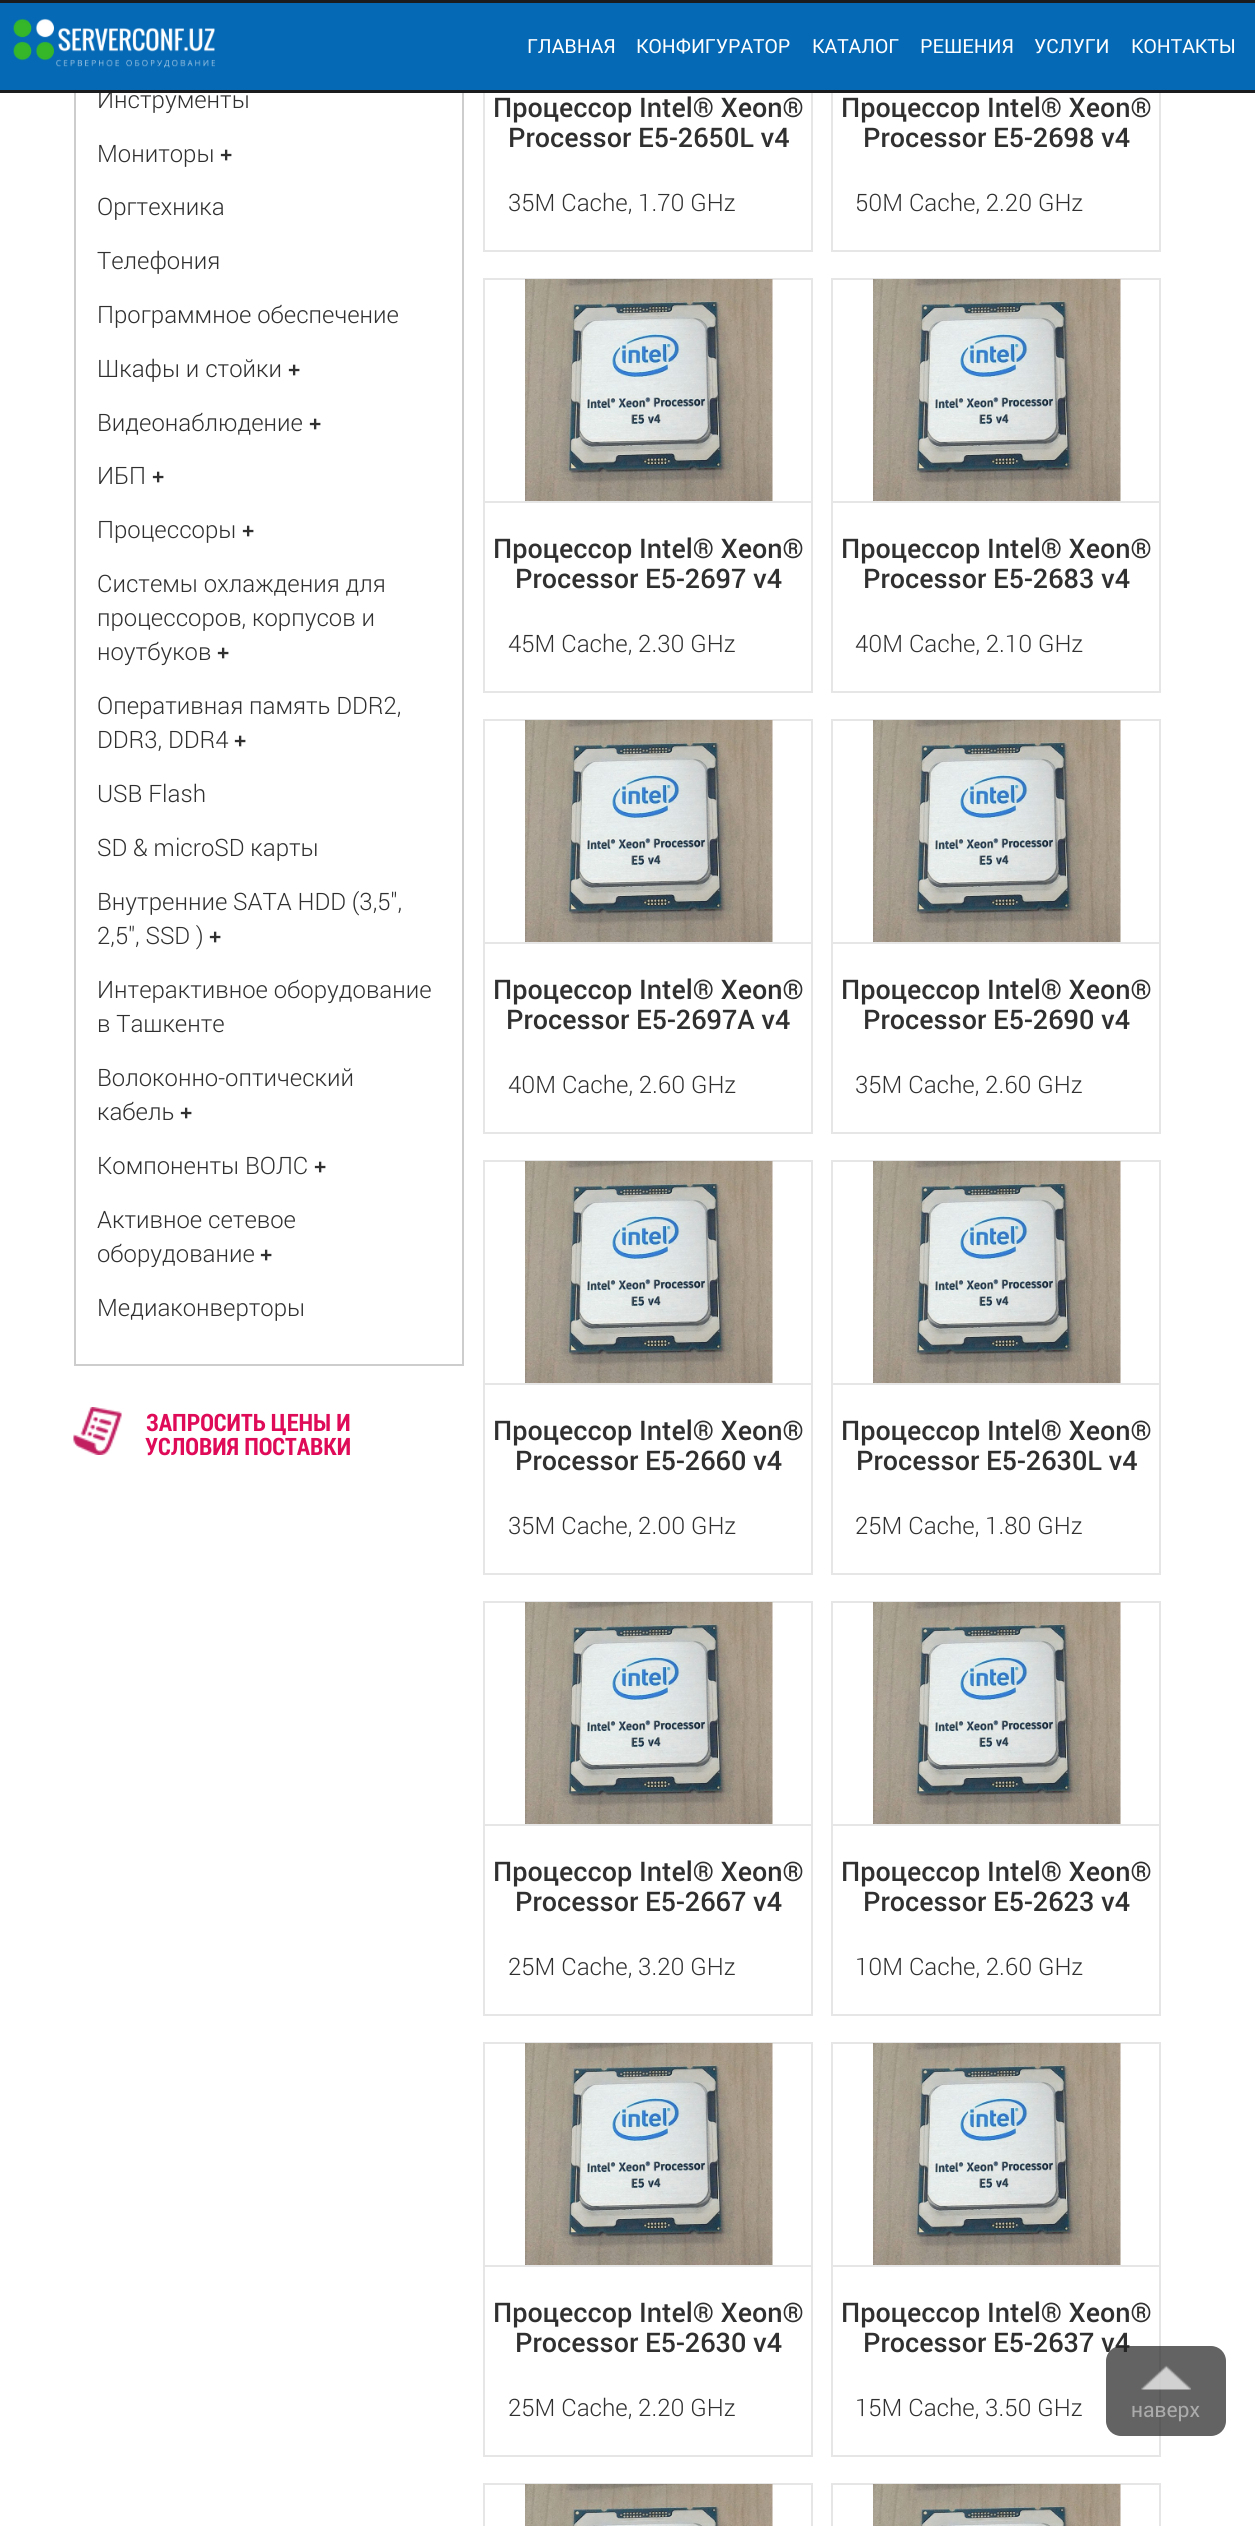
#include <cairo.h>
#include <math.h>
#include <stddef.h>

typedef struct { const char *family; double size; int italic, bold; unsigned color; } style_t;
static cairo_t *ctx;

static void ink(unsigned color) {
    cairo_set_source_rgb(ctx, (color >> 16) / 255.0, (color >> 8 & 255) / 255.0, (color & 255) / 255.0);
}

static void write(double x, double y, const char *s, const style_t *st) {
    cairo_select_font_face(ctx, st->family, st->italic ? CAIRO_FONT_SLANT_ITALIC : CAIRO_FONT_SLANT_NORMAL,
        st->bold ? CAIRO_FONT_WEIGHT_BOLD : CAIRO_FONT_WEIGHT_NORMAL);
    cairo_set_font_size(ctx, st->size);
    ink(st->color);
    cairo_move_to(ctx, x, y);
    cairo_show_text(ctx, s);
}

static void block(double x, double y, double w, double h, unsigned color) {
    ink(color);
    cairo_rectangle(ctx, x, y, w, h);
    cairo_fill(ctx);
}

static void round_path(double x, double y, double w, double h, double r) {
    cairo_new_sub_path(ctx);
    cairo_arc(ctx, x + w - r, y + h - r, r, 0, M_PI / 2);
    cairo_arc(ctx, x + r, y + h - r, r, M_PI / 2, M_PI);
    cairo_arc(ctx, x + r, y + r, r, M_PI, 1.5 * M_PI);
    cairo_arc(ctx, x + w - r, y + r, r, 1.5 * M_PI, 2 * M_PI);
    cairo_close_path(ctx);
}

static void paste(const char *path, double x, double y, double w, double h) {
    cairo_surface_t *image = cairo_image_surface_create_from_png(path);
    cairo_save(ctx);
    cairo_set_source_surface(ctx, image, x, y);
    cairo_rectangle(ctx, x, y, w, h);
    cairo_fill(ctx);
    cairo_restore(ctx);
    cairo_surface_destroy(image);
}

static const style_t s1 = {"Roboto Light", 24, 0, 0, 0x303030};
static const style_t s2 = {"Roboto", 19.5, 0, 0, 0xffffff};
static const style_t s3 = {"Liberation Sans", 21, 0, 1, 0x303030};
static const style_t s4 = {"Roboto Condensed", 24, 0, 1, 0xdf0b59};
static const style_t s5 = {"Roboto Medium", 27, 0, 0, 0x303030};
static const style_t s6 = {"Roboto", 21, 0, 0, 0xababab};

int main(void) {
    cairo_surface_t *surface = cairo_image_surface_create(CAIRO_FORMAT_RGB24, 1255, 2526);
    ctx = cairo_create(surface);
    cairo_font_options_t *options = cairo_font_options_create();
    cairo_font_options_set_hint_metrics(options, CAIRO_HINT_METRICS_OFF);
    cairo_font_options_set_hint_style(options, CAIRO_HINT_STYLE_NONE);
    cairo_set_font_options(ctx, options);
    cairo_set_miter_limit(ctx, 4);
    ink(0xffffff);
    cairo_paint(ctx);
    cairo_rectangle(ctx, 484, -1, 328, 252);
    ink(0xe6e6e6);
    cairo_stroke(ctx);
    cairo_rectangle(ctx, 832, -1, 328, 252);
    cairo_stroke(ctx);
    block(0, 3, 1255, 87, 0x0569b5);
    block(0, 0, 1255, 3, 0x1b1c1e);
    write(97, 108, "Инструменты", &s1);
    block(0, 90, 1255, 3, 0x1b1c1e);
    paste("pic1.png", 13, 18, 202, 50);
    write(527, 53, "ГЛАВНАЯ", &s2);
    write(636, 53, "КОНФИГУРАТОР", &s2);
    write(812, 53, "КАТАЛОГ", &s2);
    write(920, 53, "РЕШЕНИЯ", &s2);
    write(1034, 53, "УСЛУГИ", &s2);
    write(1131, 53, "КОНТАКТЫ", &s2);
    block(462, 93, 2, 1272, 0xcdcdcd);
    block(74, 1364, 390, 2, 0xcdcdcd);
    block(74, 93, 2, 1272, 0xcdcdcd);
    write(97, 162, "Мониторы", &s1);
    write(220, 162, "+", &s3);
    write(97, 215, "Оргтехника", &s1);
    write(97, 269, "Телефония", &s1);
    write(97, 323, "Программное обеспечение", &s1);
    write(97, 377, "Шкафы и стойки", &s1);
    write(288, 377, "+", &s3);
    write(97, 431, "Видеонаблюдение", &s1);
    write(309, 431, "+", &s3);
    write(97, 484, "ИБП", &s1);
    write(152, 484, "+", &s3);
    write(97, 538, "Процессоры", &s1);
    write(242, 538, "+", &s3);
    write(97, 592, "Системы охлаждения для", &s1);
    write(97, 626, "процессоров, корпусов и", &s1);
    write(97, 660, "ноутбуков", &s1);
    write(217, 660, "+", &s3);
    write(97, 714, "Оперативная память DDR2,", &s1);
    write(97, 748, "DDR3, DDR4", &s1);
    write(234, 748, "+", &s3);
    write(97, 802, "USB Flash", &s1);
    write(97, 856, "SD & microSD карты", &s1);
    write(97, 910, "Внутренние SATA HDD (3,5\",", &s1);
    write(97, 944, "2,5\", SSD )", &s1);
    write(209, 944, "+", &s3);
    write(97, 998, "Интерактивное оборудование", &s1);
    write(97, 1032, "в Ташкенте", &s1);
    write(97, 1086, "Волоконно-оптический", &s1);
    write(97, 1120, "кабель", &s1);
    write(180, 1120, "+", &s3);
    write(97, 1174, "Компоненты ВОЛС", &s1);
    write(314, 1174, "+", &s3);
    write(97, 1228, "Активное сетевое", &s1);
    write(97, 1262, "оборудование", &s1);
    write(260, 1262, "+", &s3);
    write(97, 1316, "Медиаконверторы", &s1);
    paste("pic2.png", 73, 1407, 49, 48);
    write(146, 1431, "ЗАПРОСИТЬ ЦЕНЫ И", &s4);
    write(145, 1455, "УСЛОВИЯ ПОСТАВКИ", &s4);
    write(493, 117, "Процессор Intel® Xeon®", &s5);
    write(508, 147, "Processor E5-2650L v4", &s5);
    write(508, 211, "35M Cache, 1.70 GHz", &s1);
    write(841, 117, "Процессор Intel® Xeon®", &s5);
    write(863, 147, "Processor E5-2698 v4", &s5);
    write(855, 211, "50M Cache, 2.20 GHz", &s1);
    cairo_rectangle(ctx, 484, 279, 328, 413);
    ink(0xe6e6e6);
    cairo_stroke(ctx);
    block(485, 501, 327, 2, 0xe6e6e6);
    paste("pic3.png", 525, 279, 248, 222);
    write(493, 558, "Процессор Intel® Xeon®", &s5);
    write(515, 588, "Processor E5-2697 v4", &s5);
    write(508, 652, "45M Cache, 2.30 GHz", &s1);
    cairo_rectangle(ctx, 832, 279, 328, 413);
    ink(0xe6e6e6);
    cairo_stroke(ctx);
    block(833, 501, 327, 2, 0xe6e6e6);
    paste("pic4.png", 873, 279, 248, 222);
    write(841, 558, "Процессор Intel® Xeon®", &s5);
    write(863, 588, "Processor E5-2683 v4", &s5);
    write(855, 652, "40M Cache, 2.10 GHz", &s1);
    cairo_rectangle(ctx, 484, 720, 328, 413);
    ink(0xe6e6e6);
    cairo_stroke(ctx);
    block(485, 942, 327, 2, 0xe6e6e6);
    paste("pic3.png", 525, 720, 248, 222);
    write(493, 999, "Процессор Intel® Xeon®", &s5);
    write(506, 1029, "Processor E5-2697A v4", &s5);
    write(508, 1093, "40M Cache, 2.60 GHz", &s1);
    cairo_rectangle(ctx, 832, 720, 328, 413);
    ink(0xe6e6e6);
    cairo_stroke(ctx);
    block(833, 942, 327, 2, 0xe6e6e6);
    paste("pic4.png", 873, 720, 248, 222);
    write(841, 999, "Процессор Intel® Xeon®", &s5);
    write(863, 1029, "Processor E5-2690 v4", &s5);
    write(855, 1093, "35M Cache, 2.60 GHz", &s1);
    cairo_rectangle(ctx, 484, 1161, 328, 413);
    ink(0xe6e6e6);
    cairo_stroke(ctx);
    block(485, 1383, 327, 2, 0xe6e6e6);
    paste("pic3.png", 525, 1161, 248, 222);
    write(493, 1440, "Процессор Intel® Xeon®", &s5);
    write(515, 1470, "Processor E5-2660 v4", &s5);
    write(508, 1534, "35M Cache, 2.00 GHz", &s1);
    cairo_rectangle(ctx, 832, 1161, 328, 413);
    ink(0xe6e6e6);
    cairo_stroke(ctx);
    block(833, 1383, 327, 2, 0xe6e6e6);
    paste("pic4.png", 873, 1161, 248, 222);
    write(841, 1440, "Процессор Intel® Xeon®", &s5);
    write(856, 1470, "Processor E5-2630L v4", &s5);
    write(855, 1534, "25M Cache, 1.80 GHz", &s1);
    cairo_rectangle(ctx, 484, 1602, 328, 413);
    ink(0xe6e6e6);
    cairo_stroke(ctx);
    block(485, 1824, 327, 2, 0xe6e6e6);
    paste("pic3.png", 525, 1602, 248, 222);
    write(493, 1881, "Процессор Intel® Xeon®", &s5);
    write(515, 1911, "Processor E5-2667 v4", &s5);
    write(508, 1975, "25M Cache, 3.20 GHz", &s1);
    cairo_rectangle(ctx, 832, 1602, 328, 413);
    ink(0xe6e6e6);
    cairo_stroke(ctx);
    block(833, 1824, 327, 2, 0xe6e6e6);
    paste("pic4.png", 873, 1602, 248, 222);
    write(841, 1881, "Процессор Intel® Xeon®", &s5);
    write(863, 1911, "Processor E5-2623 v4", &s5);
    write(855, 1975, "10M Cache, 2.60 GHz", &s1);
    cairo_rectangle(ctx, 484, 2043, 328, 413);
    ink(0xe6e6e6);
    cairo_stroke(ctx);
    block(485, 2265, 327, 2, 0xe6e6e6);
    paste("pic5.png", 525, 2043, 248, 222);
    write(493, 2322, "Процессор Intel® Xeon®", &s5);
    write(515, 2352, "Processor E5-2630 v4", &s5);
    write(508, 2416, "25M Cache, 2.20 GHz", &s1);
    cairo_rectangle(ctx, 832, 2043, 328, 413);
    ink(0xe6e6e6);
    cairo_stroke(ctx);
    block(833, 2265, 327, 2, 0xe6e6e6);
    paste("pic6.png", 873, 2043, 248, 222);
    write(841, 2322, "Процессор Intel® Xeon®", &s5);
    write(863, 2352, "Processor E5-2637 v4", &s5);
    write(855, 2416, "15M Cache, 3.50 GHz", &s1);
    cairo_rectangle(ctx, 484, 2484, 328, 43);
    ink(0xe6e6e6);
    cairo_stroke(ctx);
    paste("pic7.png", 525, 2484, 248, 42);
    cairo_rectangle(ctx, 832, 2484, 328, 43);
    cairo_stroke(ctx);
    paste("pic8.png", 873, 2484, 248, 42);
    cairo_set_source_rgba(ctx, 0.133, 0.133, 0.133, 0.7);
    round_path(1106, 2346, 120, 90, 15);
    cairo_fill(ctx);
    paste("pic9.png", 1141, 2365, 50, 25);
    write(1131, 2417, "наверх", &s6);
    cairo_surface_write_to_png(surface, "screenshot.png");
    cairo_font_options_destroy(options);
    cairo_destroy(ctx);
    cairo_surface_destroy(surface);
    return 0;
}
